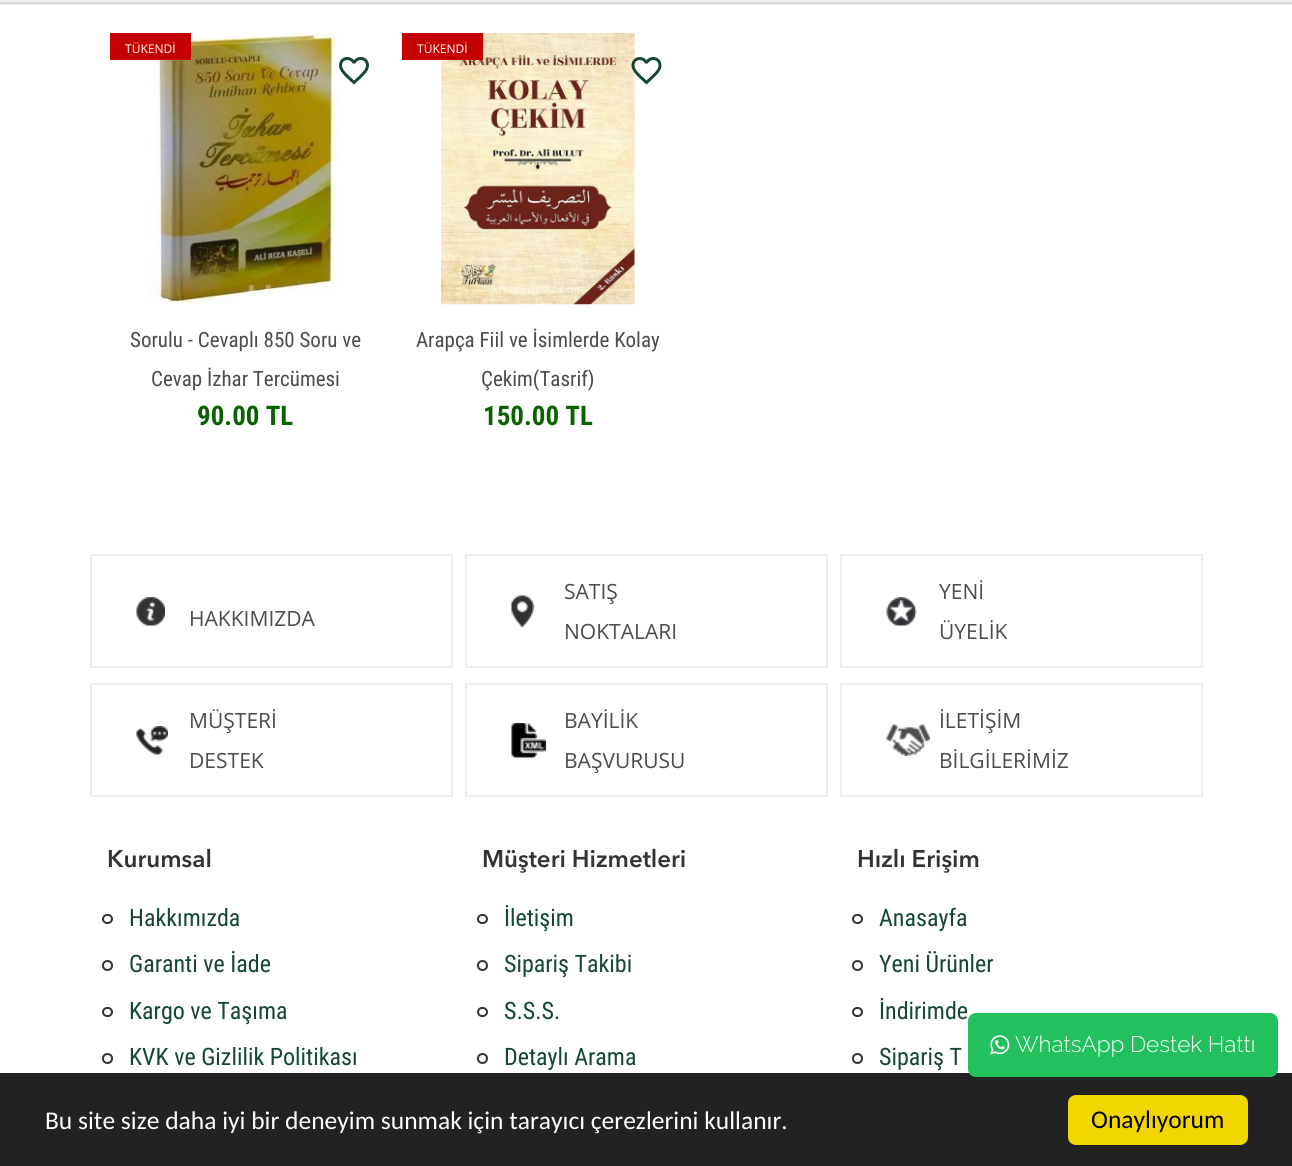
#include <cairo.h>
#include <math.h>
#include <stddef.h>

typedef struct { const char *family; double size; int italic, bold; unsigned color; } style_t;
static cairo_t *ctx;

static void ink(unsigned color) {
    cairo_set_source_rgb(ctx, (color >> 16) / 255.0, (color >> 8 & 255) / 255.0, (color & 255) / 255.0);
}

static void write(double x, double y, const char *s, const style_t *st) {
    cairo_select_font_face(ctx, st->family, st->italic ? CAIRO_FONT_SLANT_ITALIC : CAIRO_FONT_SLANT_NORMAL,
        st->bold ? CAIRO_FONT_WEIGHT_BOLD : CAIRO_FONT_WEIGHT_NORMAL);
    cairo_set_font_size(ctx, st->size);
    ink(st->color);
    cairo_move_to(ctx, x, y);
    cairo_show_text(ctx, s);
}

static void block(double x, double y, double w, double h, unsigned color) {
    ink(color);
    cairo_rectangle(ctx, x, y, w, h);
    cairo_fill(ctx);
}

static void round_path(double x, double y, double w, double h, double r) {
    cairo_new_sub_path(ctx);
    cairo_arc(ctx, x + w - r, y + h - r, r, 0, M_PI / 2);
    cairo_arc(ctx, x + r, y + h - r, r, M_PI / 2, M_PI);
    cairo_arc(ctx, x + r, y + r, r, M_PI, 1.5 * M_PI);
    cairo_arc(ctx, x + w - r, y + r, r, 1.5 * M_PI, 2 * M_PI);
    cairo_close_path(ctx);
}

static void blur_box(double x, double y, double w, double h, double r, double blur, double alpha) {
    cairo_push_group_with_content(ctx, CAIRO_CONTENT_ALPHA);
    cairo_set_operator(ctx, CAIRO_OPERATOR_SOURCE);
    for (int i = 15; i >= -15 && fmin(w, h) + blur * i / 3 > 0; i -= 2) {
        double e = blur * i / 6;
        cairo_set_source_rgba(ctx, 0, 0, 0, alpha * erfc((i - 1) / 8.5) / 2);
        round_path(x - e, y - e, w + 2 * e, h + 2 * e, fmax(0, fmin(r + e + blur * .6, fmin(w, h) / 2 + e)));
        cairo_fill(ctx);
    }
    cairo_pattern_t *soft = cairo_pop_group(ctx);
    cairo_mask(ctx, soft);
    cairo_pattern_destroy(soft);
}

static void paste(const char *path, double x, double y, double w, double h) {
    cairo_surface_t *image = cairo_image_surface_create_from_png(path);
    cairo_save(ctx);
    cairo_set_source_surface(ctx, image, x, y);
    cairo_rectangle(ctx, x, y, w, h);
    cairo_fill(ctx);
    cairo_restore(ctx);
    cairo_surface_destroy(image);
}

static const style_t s1 = {"Open Sans", 12, 0, 0, 0xffffff};
static const style_t s2 = {"Roboto Condensed", 21, 0, 0, 0x4d4b4c};
static const style_t s3 = {"Roboto Condensed", 27, 0, 1, 0x0a6100};
static const style_t s4 = {"Open Sans", 21, 0, 0, 0x4d4b4c};
static const style_t s5 = {"Avenir Next SemiBold", 24, 0, 0, 0x333333};
static const style_t s6 = {"Roboto Condensed", 24, 0, 0, 0x154734};
static const style_t s7 = {"Raleway Light", 22.5, 0, 0, 0xffffff};
static const style_t s8 = {"Carlito", 25.5, 0, 0, 0xffffff};
static const style_t s9 = {"Carlito", 25.5, 0, 0, 0x000000};

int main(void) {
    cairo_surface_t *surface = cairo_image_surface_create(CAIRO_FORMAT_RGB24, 1292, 1166);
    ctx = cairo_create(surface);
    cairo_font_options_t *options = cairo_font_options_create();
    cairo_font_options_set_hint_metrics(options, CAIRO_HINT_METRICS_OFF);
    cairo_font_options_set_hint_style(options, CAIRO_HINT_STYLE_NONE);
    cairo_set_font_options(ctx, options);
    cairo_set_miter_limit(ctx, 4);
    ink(0xffffff);
    cairo_paint(ctx);
    ink(0x000000);
    blur_box(0, 2, 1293, 2, 0, 1, 0.2);
    block(0, 0, 1292, 2, 0xeeeeee);
    paste("pic1.png", 150, 33, 191, 271);
    block(110, 33, 81, 27, 0xc50000);
    write(125, 53, "TÜKENDİ", &s1);
    paste("pic2.png", 339, 57, 30, 28);
    write(130, 347, "Sorulu - Cevaplı 850 Soru ve", &s2);
    write(151, 386, "Cevap İzhar Tercümesi", &s2);
    write(197, 425, "90.00 TL", &s3);
    paste("pic3.png", 441, 33, 194, 272);
    block(402, 33, 81, 27, 0xc50000);
    write(417, 53, "TÜKENDİ", &s1);
    paste("pic4.png", 631, 57, 31, 28);
    write(416, 347, "Arapça Fiil ve İsimlerde Kolay", &s2);
    write(481, 386, "Çekim(Tasrif)", &s2);
    write(483, 425, "150.00 TL", &s3);
    paste("pic5.png", 136, 597, 29, 29);
    cairo_rectangle(ctx, 91, 555, 361, 112);
    ink(0xeeeeee);
    cairo_stroke(ctx);
    write(189, 626, "HAKKIMIZDA", &s4);
    paste("pic6.png", 511, 595, 23, 32);
    cairo_rectangle(ctx, 466, 555, 361, 112);
    ink(0xeeeeee);
    cairo_stroke(ctx);
    write(564, 599, "SATIŞ", &s4);
    write(564, 639, "NOKTALARI", &s4);
    paste("pic7.png", 886, 597, 31, 29);
    cairo_rectangle(ctx, 841, 555, 361, 112);
    ink(0xeeeeee);
    cairo_stroke(ctx);
    write(939, 599, "YENİ", &s4);
    write(939, 639, "ÜYELİK", &s4);
    paste("pic8.png", 136, 726, 32, 29);
    cairo_rectangle(ctx, 91, 684, 361, 112);
    ink(0xeeeeee);
    cairo_stroke(ctx);
    write(189, 728, "MÜŞTERİ", &s4);
    write(189, 768, "DESTEK", &s4);
    paste("pic9.png", 511, 723, 35, 35);
    cairo_rectangle(ctx, 466, 684, 361, 112);
    ink(0xeeeeee);
    cairo_stroke(ctx);
    write(564, 728, "BAYİLİK", &s4);
    write(564, 768, "BAŞVURUSU", &s4);
    paste("pic10.png", 886, 724, 44, 32);
    cairo_rectangle(ctx, 841, 684, 361, 112);
    ink(0xeeeeee);
    cairo_stroke(ctx);
    write(939, 728, "İLETİŞİM", &s4);
    write(939, 768, "BİLGİLERİMİZ", &s4);
    write(107, 867, "Kurumsal", &s5);
    round_path(103, 915, 9, 8, 4);
    cairo_stroke(ctx);
    write(129, 926, "Hakkımızda", &s6);
    cairo_new_path(ctx);
    cairo_arc(ctx, 107.5, 965.5, 4.5, 0, 2 * M_PI);
    ink(0x333333);
    cairo_stroke(ctx);
    write(129, 972, "Garanti ve İade", &s6);
    round_path(103, 1008, 9, 8, 4);
    ink(0x333333);
    cairo_stroke(ctx);
    write(129, 1019, "Kargo ve Taşıma", &s6);
    cairo_new_path(ctx);
    cairo_arc(ctx, 107.5, 1058.5, 4.5, 0, 2 * M_PI);
    ink(0x333333);
    cairo_stroke(ctx);
    write(129, 1065, "KVK ve Gizlilik Politikası", &s6);
    write(482, 867, "Müşteri Hizmetleri", &s5);
    round_path(478, 915, 9, 8, 4);
    cairo_stroke(ctx);
    write(504, 926, "İletişim", &s6);
    cairo_new_path(ctx);
    cairo_arc(ctx, 482.5, 965.5, 4.5, 0, 2 * M_PI);
    ink(0x333333);
    cairo_stroke(ctx);
    write(504, 972, "Sipariş Takibi", &s6);
    round_path(478, 1008, 9, 8, 4);
    ink(0x333333);
    cairo_stroke(ctx);
    write(504, 1019, "S.S.S.", &s6);
    cairo_new_path(ctx);
    cairo_arc(ctx, 482.5, 1058.5, 4.5, 0, 2 * M_PI);
    ink(0x333333);
    cairo_stroke(ctx);
    write(504, 1065, "Detaylı Arama", &s6);
    write(857, 867, "Hızlı Erişim", &s5);
    round_path(853, 915, 9, 8, 4);
    cairo_stroke(ctx);
    write(879, 926, "Anasayfa", &s6);
    cairo_new_path(ctx);
    cairo_arc(ctx, 857.5, 965.5, 4.5, 0, 2 * M_PI);
    ink(0x333333);
    cairo_stroke(ctx);
    write(879, 972, "Yeni Ürünler", &s6);
    round_path(853, 1008, 9, 8, 4);
    ink(0x333333);
    cairo_stroke(ctx);
    write(879, 1019, "İndirimde", &s6);
    cairo_new_path(ctx);
    cairo_arc(ctx, 857.5, 1058.5, 4.5, 0, 2 * M_PI);
    ink(0x333333);
    cairo_stroke(ctx);
    write(879, 1065, "Sipariş T", &s6);
    block(0, 1073, 1292, 93, 0x222222);
    ink(0x22c15e);
    round_path(968, 1013, 310, 64, 8);
    cairo_fill(ctx);
    paste("pic11.png", 990, 1035, 20, 20);
    write(1015, 1052, "WhatsApp Destek Hattı", &s7);
    write(45, 1129, "Bu site size daha iyi bir deneyim sunmak için tarayıcı çerezlerini kullanır.", &s8);
    ink(0xf1d600);
    round_path(1068, 1095, 180, 50, 8);
    cairo_fill(ctx);
    write(1091, 1128, "Onaylıyorum", &s9);
    cairo_surface_write_to_png(surface, "screenshot.png");
    cairo_font_options_destroy(options);
    cairo_destroy(ctx);
    cairo_surface_destroy(surface);
    return 0;
}
